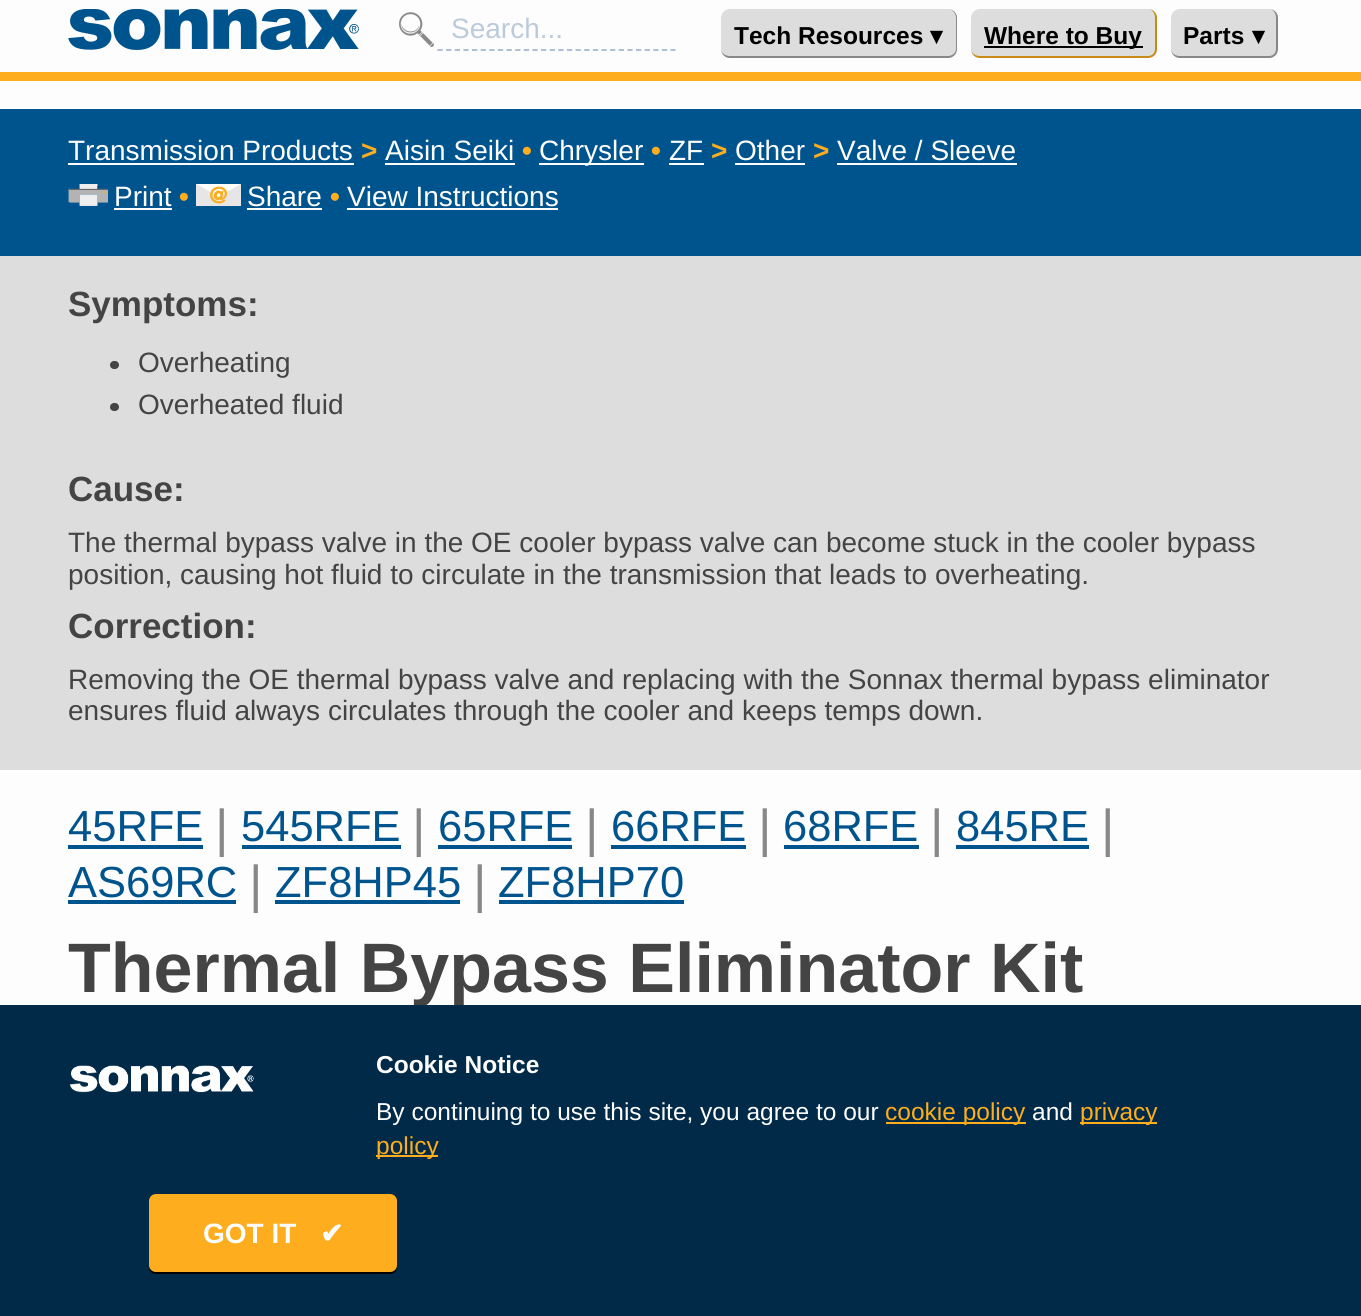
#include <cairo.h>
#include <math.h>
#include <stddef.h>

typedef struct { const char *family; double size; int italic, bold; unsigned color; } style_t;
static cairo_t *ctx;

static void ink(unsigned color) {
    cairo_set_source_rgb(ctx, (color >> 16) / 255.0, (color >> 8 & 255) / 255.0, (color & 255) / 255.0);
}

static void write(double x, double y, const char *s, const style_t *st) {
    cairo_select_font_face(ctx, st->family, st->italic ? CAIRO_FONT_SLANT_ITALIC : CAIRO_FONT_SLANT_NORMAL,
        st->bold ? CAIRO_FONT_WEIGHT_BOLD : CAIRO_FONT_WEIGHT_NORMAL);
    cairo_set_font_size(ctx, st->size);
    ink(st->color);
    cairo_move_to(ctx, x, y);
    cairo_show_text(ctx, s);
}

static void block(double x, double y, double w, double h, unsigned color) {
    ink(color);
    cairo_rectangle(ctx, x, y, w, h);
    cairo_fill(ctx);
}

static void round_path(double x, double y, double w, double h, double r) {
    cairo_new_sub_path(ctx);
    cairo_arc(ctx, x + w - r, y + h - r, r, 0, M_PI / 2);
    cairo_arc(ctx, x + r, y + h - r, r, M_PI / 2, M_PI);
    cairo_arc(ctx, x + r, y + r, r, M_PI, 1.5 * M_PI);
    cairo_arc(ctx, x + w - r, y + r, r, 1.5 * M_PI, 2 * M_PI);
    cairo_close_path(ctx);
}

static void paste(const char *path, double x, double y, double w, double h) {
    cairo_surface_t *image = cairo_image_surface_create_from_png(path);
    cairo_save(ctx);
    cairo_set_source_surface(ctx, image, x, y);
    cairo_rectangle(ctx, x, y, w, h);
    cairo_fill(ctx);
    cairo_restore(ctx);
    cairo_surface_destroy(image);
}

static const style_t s1 = {"Liberation Sans", 28, 0, 0, 0xbccbdb};
static const style_t s2 = {"Liberation Sans", 24.5, 0, 1, 0x000000};
static const style_t s3 = {"DejaVu Sans", 24.5, 0, 1, 0x000000};
static const style_t s4 = {"Liberation Sans", 28, 0, 0, 0xfdfdfd};
static const style_t s5 = {"Liberation Sans", 28, 0, 1, 0xfdad1d};
static const style_t s6 = {"Liberation Sans", 35, 0, 1, 0x444444};
static const style_t s7 = {"Liberation Sans", 28, 0, 0, 0x444444};
static const style_t s8 = {"Liberation Sans", 43.5, 0, 0, 0x00548e};
static const style_t s9 = {"Liberation Sans", 52, 0, 0, 0x888888};
static const style_t s10 = {"Liberation Sans", 70, 0, 1, 0x444444};
static const style_t s11 = {"Liberation Sans", 24.5, 0, 1, 0xfdfdfd};
static const style_t s12 = {"Liberation Sans", 24.5, 0, 0, 0xfdfdfd};
static const style_t s13 = {"Liberation Sans", 24.5, 0, 0, 0xfdad1d};
static const style_t s14 = {"Liberation Sans", 28, 0, 1, 0xfdfdfd};
static const style_t s15 = {"DejaVu Sans", 28, 0, 1, 0xfdfdfd};

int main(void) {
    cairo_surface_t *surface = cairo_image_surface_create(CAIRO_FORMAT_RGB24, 1361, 1316);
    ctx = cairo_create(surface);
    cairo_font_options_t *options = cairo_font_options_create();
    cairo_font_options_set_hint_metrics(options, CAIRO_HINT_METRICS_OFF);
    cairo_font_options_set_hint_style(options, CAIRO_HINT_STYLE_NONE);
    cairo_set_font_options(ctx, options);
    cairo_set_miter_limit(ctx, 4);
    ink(0xfdfdfd);
    cairo_paint(ctx);
    block(0, 72, 1361, 9, 0xfdad1d);
    paste("pic1.png", 68, 9, 291, 41);
    paste("pic2.png", 399, 12, 35, 35);
    cairo_new_path(ctx);
    cairo_move_to(ctx, 437.5, 50);
    cairo_line_to(ctx, 675.5, 50);
    ink(0xa6b9cf);
    cairo_set_line_width(ctx, 1.8);
    cairo_set_dash(ctx, (double[]){5.25, 3.38}, 2, 0);
    cairo_stroke(ctx);
    write(451, 38, "Search...", &s1);
    ink(0xdddddd);
    round_path(721, 9, 236, 49, 9);
    cairo_fill(ctx);
    ink(0x888888);
    cairo_set_fill_rule(ctx, CAIRO_FILL_RULE_EVEN_ODD);
    cairo_new_path(ctx);
    cairo_move_to(ctx, 730, 9);
    cairo_line_to(ctx, 948, 9);
    cairo_curve_to(ctx, 953, 9, 957, 13, 957, 18);
    cairo_line_to(ctx, 957, 49);
    cairo_curve_to(ctx, 957, 54, 953, 58, 948, 58);
    cairo_line_to(ctx, 730, 58);
    cairo_curve_to(ctx, 725, 58, 721, 54, 721, 49);
    cairo_line_to(ctx, 721, 18);
    cairo_curve_to(ctx, 721, 13, 725, 9, 730, 9);
    cairo_close_path(ctx);
    cairo_move_to(ctx, 730, 9);
    cairo_line_to(ctx, 948, 9);
    cairo_curve_to(ctx, 952, 9, 956, 13, 956, 18);
    cairo_line_to(ctx, 956, 49);
    cairo_curve_to(ctx, 956, 53, 952, 56, 948, 56);
    cairo_line_to(ctx, 730, 56);
    cairo_curve_to(ctx, 725, 56, 721, 53, 721, 49);
    cairo_line_to(ctx, 721, 18);
    cairo_curve_to(ctx, 721, 13, 725, 9, 730, 9);
    cairo_close_path(ctx);
    cairo_fill(ctx);
    write(734, 44, "Tech Resources", &s2);
    write(930, 44, "▾", &s3);
    ink(0xdddddd);
    round_path(971, 9, 186, 49, 9);
    cairo_fill(ctx);
    ink(0xca8a17);
    cairo_new_path(ctx);
    cairo_move_to(ctx, 980, 9);
    cairo_line_to(ctx, 1148, 9);
    cairo_curve_to(ctx, 1153, 9, 1157, 13, 1157, 18);
    cairo_line_to(ctx, 1157, 49);
    cairo_curve_to(ctx, 1157, 54, 1153, 58, 1148, 58);
    cairo_line_to(ctx, 980, 58);
    cairo_curve_to(ctx, 975, 58, 971, 54, 971, 49);
    cairo_line_to(ctx, 971, 18);
    cairo_curve_to(ctx, 971, 13, 975, 9, 980, 9);
    cairo_close_path(ctx);
    cairo_move_to(ctx, 980, 9);
    cairo_line_to(ctx, 1148, 9);
    cairo_curve_to(ctx, 1152, 9, 1155, 13, 1155, 18);
    cairo_line_to(ctx, 1155, 49);
    cairo_curve_to(ctx, 1155, 53, 1152, 56, 1148, 56);
    cairo_line_to(ctx, 980, 56);
    cairo_curve_to(ctx, 975, 56, 971, 53, 971, 49);
    cairo_line_to(ctx, 971, 18);
    cairo_curve_to(ctx, 971, 13, 975, 9, 980, 9);
    cairo_close_path(ctx);
    cairo_fill(ctx);
    block(984, 46, 159, 2, 0x000000);
    write(984, 44, "Where to Buy", &s2);
    ink(0xdddddd);
    round_path(1171, 9, 107, 49, 9);
    cairo_fill(ctx);
    ink(0x888888);
    cairo_new_path(ctx);
    cairo_move_to(ctx, 1180, 9);
    cairo_line_to(ctx, 1269, 9);
    cairo_curve_to(ctx, 1274, 9, 1278, 13, 1278, 18);
    cairo_line_to(ctx, 1278, 49);
    cairo_curve_to(ctx, 1278, 54, 1274, 58, 1269, 58);
    cairo_line_to(ctx, 1180, 58);
    cairo_curve_to(ctx, 1175, 58, 1171, 54, 1171, 49);
    cairo_line_to(ctx, 1171, 18);
    cairo_curve_to(ctx, 1171, 13, 1175, 9, 1180, 9);
    cairo_close_path(ctx);
    cairo_move_to(ctx, 1180, 9);
    cairo_line_to(ctx, 1269, 9);
    cairo_curve_to(ctx, 1273, 9, 1276, 13, 1276, 18);
    cairo_line_to(ctx, 1276, 49);
    cairo_curve_to(ctx, 1276, 53, 1273, 56, 1269, 56);
    cairo_line_to(ctx, 1180, 56);
    cairo_curve_to(ctx, 1175, 56, 1171, 53, 1171, 49);
    cairo_line_to(ctx, 1171, 18);
    cairo_curve_to(ctx, 1171, 13, 1175, 9, 1180, 9);
    cairo_close_path(ctx);
    cairo_fill(ctx);
    write(1183, 44, "Parts", &s2);
    write(1252, 44, "▾", &s3);
    block(0, 109, 1361, 147, 0x00548e);
    write(68, 160, "Transmission Products", &s4);
    block(68, 163, 286, 2, 0xfdfdfd);
    write(361, 160, ">", &s5);
    write(385, 160, "Aisin Seiki", &s4);
    block(385, 163, 130, 2, 0xfdfdfd);
    write(522, 160, "•", &s5);
    block(539, 163, 105, 2, 0xfdfdfd);
    write(539, 160, "Chrysler", &s4);
    write(651, 160, "•", &s5);
    write(669, 160, "ZF", &s4);
    block(669, 163, 35, 2, 0xfdfdfd);
    write(711, 160, ">", &s5);
    write(735, 160, "Other", &s4);
    block(735, 163, 70, 2, 0xfdfdfd);
    write(813, 160, ">", &s5);
    write(837, 160, "Valve / Sleeve", &s4);
    block(837, 163, 180, 2, 0xfdfdfd);
    paste("pic3.png", 68, 184, 40, 22);
    write(114, 206, "Print", &s4);
    block(114, 208, 58, 2, 0xfdfdfd);
    write(179, 206, "•", &s5);
    paste("pic4.png", 196, 184, 45, 22);
    write(247, 206, "Share", &s4);
    block(247, 208, 75, 2, 0xfdfdfd);
    write(330, 206, "•", &s5);
    write(347, 206, "View Instructions", &s4);
    block(347, 208, 211, 2, 0xfdfdfd);
    block(0, 256, 1361, 514, 0xdddddd);
    write(68, 316, "Symptoms:", &s6);
    round_path(110, 361, 9, 8, 4);
    cairo_fill(ctx);
    write(138, 372, "Overheating", &s7);
    round_path(110, 403, 9, 8, 4);
    cairo_fill(ctx);
    write(138, 414, "Overheated fluid", &s7);
    write(68, 501, "Cause:", &s6);
    write(68, 552, "The thermal bypass valve in the OE cooler bypass valve can become stuck in the cooler bypass", &s7);
    write(68, 584, "position, causing hot fluid to circulate in the transmission that leads to overheating.", &s7);
    write(68, 638, "Correction:", &s6);
    write(68, 689, "Removing the OE thermal bypass valve and replacing with the Sonnax thermal bypass eliminator", &s7);
    write(68, 720, "ensures fluid always circulates through the cooler and keeps temps down.", &s7);
    write(68, 841, "45RFE", &s8);
    block(68, 845, 135, 4, 0x00548e);
    write(215, 846, "|", &s9);
    write(241, 841, "545RFE", &s8);
    block(242, 845, 159, 4, 0x00548e);
    write(412, 846, "|", &s9);
    write(438, 841, "65RFE", &s8);
    block(438, 845, 134, 4, 0x00548e);
    write(585, 846, "|", &s9);
    write(611, 841, "66RFE", &s8);
    block(611, 845, 135, 4, 0x00548e);
    write(758, 846, "|", &s9);
    write(783, 841, "68RFE", &s8);
    block(784, 845, 135, 4, 0x00548e);
    write(930, 846, "|", &s9);
    write(956, 841, "845RE", &s8);
    block(956, 845, 133, 4, 0x00548e);
    write(1101, 846, "|", &s9);
    write(68, 897, "AS69RC", &s8);
    block(68, 900, 168, 4, 0x00548e);
    write(249, 902, "|", &s9);
    write(275, 897, "ZF8HP45", &s8);
    block(275, 900, 185, 4, 0x00548e);
    write(473, 902, "|", &s9);
    write(498, 897, "ZF8HP70", &s8);
    block(499, 900, 185, 4, 0x00548e);
    write(68, 992, "Thermal Bypass Eliminator Kit", &s10);
    block(0, 1005, 1361, 311, 0x002a47);
    paste("pic5.png", 70, 1065, 184, 28);
    write(376, 1073, "Cookie Notice", &s11);
    write(376, 1120, "By continuing to use this site, you agree to our", &s12);
    block(886, 1122, 140, 2, 0xfdad1d);
    write(885, 1120, "cookie policy", &s13);
    write(1032, 1120, "and", &s12);
    block(1080, 1122, 77, 2, 0xfdad1d);
    write(1080, 1120, "privacy", &s13);
    block(376, 1155, 62, 2, 0xfdad1d);
    write(376, 1154, "policy", &s13);
    ink(0x000000);
    cairo_set_fill_rule(ctx, CAIRO_FILL_RULE_WINDING);
    cairo_new_path(ctx);
    cairo_move_to(ctx, 149, 1267);
    cairo_curve_to(ctx, 149, 1271, 152, 1274, 156, 1274);
    cairo_line_to(ctx, 390, 1274);
    cairo_curve_to(ctx, 394, 1274, 397, 1271, 397, 1267);
    cairo_curve_to(ctx, 396, 1270, 393, 1272, 390, 1272);
    cairo_line_to(ctx, 156, 1272);
    cairo_curve_to(ctx, 153, 1272, 150, 1270, 149, 1267);
    cairo_close_path(ctx);
    cairo_fill(ctx);
    ink(0xfdad1d);
    round_path(150, 1195, 246, 76, 6);
    cairo_fill_preserve(ctx);
    cairo_set_line_width(ctx, 2);
    cairo_set_dash(ctx, NULL, 0, 0);
    cairo_stroke(ctx);
    write(203, 1243, "GOT IT", &s14);
    write(320, 1243, "✔", &s15);
    cairo_surface_write_to_png(surface, "screenshot.png");
    cairo_font_options_destroy(options);
    cairo_destroy(ctx);
    cairo_surface_destroy(surface);
    return 0;
}
